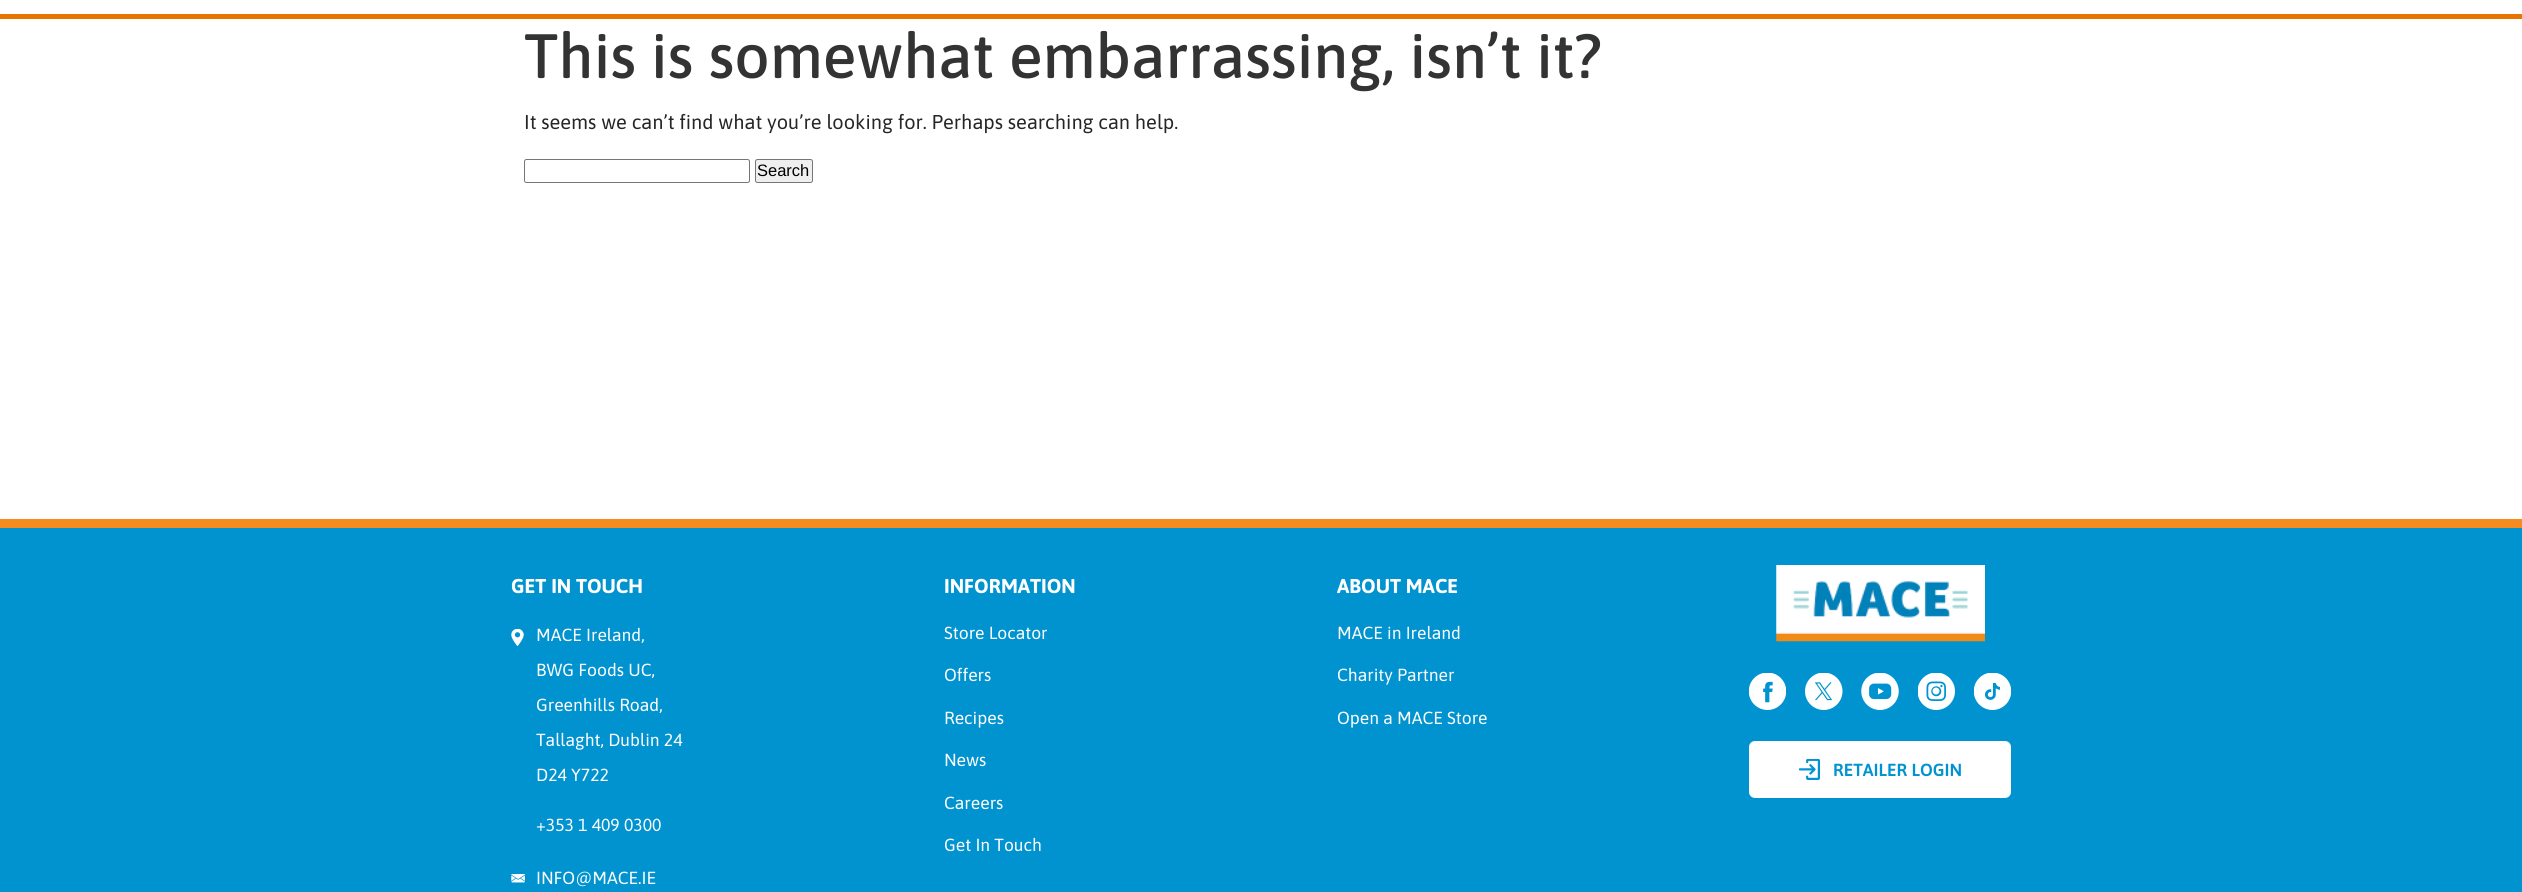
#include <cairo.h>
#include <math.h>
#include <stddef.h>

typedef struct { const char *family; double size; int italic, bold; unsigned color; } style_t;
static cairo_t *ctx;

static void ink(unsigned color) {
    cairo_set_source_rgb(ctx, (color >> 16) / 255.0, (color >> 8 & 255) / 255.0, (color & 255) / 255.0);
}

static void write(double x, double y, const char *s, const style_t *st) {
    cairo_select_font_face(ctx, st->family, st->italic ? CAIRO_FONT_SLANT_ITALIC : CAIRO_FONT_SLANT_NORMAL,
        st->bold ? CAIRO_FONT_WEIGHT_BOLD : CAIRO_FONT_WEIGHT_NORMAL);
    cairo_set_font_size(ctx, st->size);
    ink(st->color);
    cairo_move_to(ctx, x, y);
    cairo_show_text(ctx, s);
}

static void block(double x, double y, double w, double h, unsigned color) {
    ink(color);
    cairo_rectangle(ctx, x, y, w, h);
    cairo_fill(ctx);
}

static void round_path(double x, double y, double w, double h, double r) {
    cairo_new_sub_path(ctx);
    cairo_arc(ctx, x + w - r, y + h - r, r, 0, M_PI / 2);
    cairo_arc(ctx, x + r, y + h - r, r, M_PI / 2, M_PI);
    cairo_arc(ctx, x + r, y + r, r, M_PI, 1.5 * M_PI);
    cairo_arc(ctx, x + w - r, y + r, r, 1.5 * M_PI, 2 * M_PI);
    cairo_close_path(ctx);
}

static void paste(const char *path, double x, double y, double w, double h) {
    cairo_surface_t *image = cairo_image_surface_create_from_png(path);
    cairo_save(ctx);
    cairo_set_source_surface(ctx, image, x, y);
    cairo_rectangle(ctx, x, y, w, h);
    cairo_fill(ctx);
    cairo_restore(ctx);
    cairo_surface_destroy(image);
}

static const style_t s1 = {"Asap Medium", 62.5, 0, 0, 0x333333};
static const style_t s2 = {"Asap", 20, 0, 0, 0x252626};
static const style_t s3 = {"Liberation Sans", 16.5, 0, 0, 0x000000};
static const style_t s4 = {"Asap", 20, 0, 1, 0xffffff};
static const style_t s5 = {"Asap", 17.5, 0, 0, 0xffffff};
static const style_t s6 = {"Asap SemiBold", 17.5, 0, 0, 0x0093d0};

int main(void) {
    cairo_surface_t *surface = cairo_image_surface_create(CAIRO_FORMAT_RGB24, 2522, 892);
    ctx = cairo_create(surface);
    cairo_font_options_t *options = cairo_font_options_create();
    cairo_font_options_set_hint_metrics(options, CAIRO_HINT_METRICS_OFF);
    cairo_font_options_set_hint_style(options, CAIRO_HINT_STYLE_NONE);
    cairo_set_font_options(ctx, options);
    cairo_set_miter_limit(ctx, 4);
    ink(0xffffff);
    cairo_paint(ctx);
    block(0, 14, 2522, 5, 0xe87500);
    write(524, 78, "This is somewhat embarrassing, isn’t it?", &s1);
    write(524, 129, "It seems we can’t find what you’re looking for. Perhaps searching can help.", &s2);
    round_path(524.5, 159.5, 225, 23, 2);
    ink(0x767676);
    cairo_set_line_width(ctx, 1);
    cairo_stroke(ctx);
    ink(0xefefef);
    round_path(755.5, 159.5, 57, 23, 2);
    cairo_fill_preserve(ctx);
    ink(0x767676);
    cairo_stroke(ctx);
    write(757, 176, "Search", &s3);
    block(0, 528, 2522, 364, 0x0093d0);
    block(0, 519, 2522, 9, 0xf68c1f);
    write(511, 593, "GET IN TOUCH", &s4);
    paste("pic1.png", 511, 629, 13, 17);
    write(536, 641, "MACE Ireland,", &s5);
    write(536, 676, "BWG Foods UC,", &s5);
    write(536, 711, "Greenhills Road,", &s5);
    write(536, 746, "Tallaght, Dublin 24", &s5);
    write(536, 781, "D24 Y722", &s5);
    write(536, 831, "+353 1 409 0300", &s5);
    paste("pic2.png", 511, 874, 14, 9);
    write(536, 884, "INFO@MACE.IE", &s5);
    write(944, 593, "INFORMATION", &s4);
    write(944, 639, "Store Locator", &s5);
    write(944, 681, "Offers", &s5);
    write(944, 724, "Recipes", &s5);
    write(944, 766, "News", &s5);
    write(944, 809, "Careers", &s5);
    write(944, 851, "Get In Touch", &s5);
    write(1337, 593, "ABOUT MACE", &s4);
    write(1337, 639, "MACE in Ireland", &s5);
    write(1337, 681, "Charity Partner", &s5);
    write(1337, 724, "Open a MACE Store", &s5);
    paste("pic3.png", 1776, 565, 209, 77);
    paste("pic4.png", 1749, 673, 37, 37);
    paste("pic5.png", 1805, 673, 38, 37);
    paste("pic6.png", 1861, 673, 38, 37);
    paste("pic7.png", 1918, 673, 37, 37);
    paste("pic8.png", 1974, 673, 37, 37);
    round_path(1749, 741, 262, 57, 6);
    cairo_fill(ctx);
    paste("pic9.png", 1799, 759, 21, 21);
    write(1833, 776, "RETAILER LOGIN", &s6);
    cairo_surface_write_to_png(surface, "screenshot.png");
    cairo_font_options_destroy(options);
    cairo_destroy(ctx);
    cairo_surface_destroy(surface);
    return 0;
}
